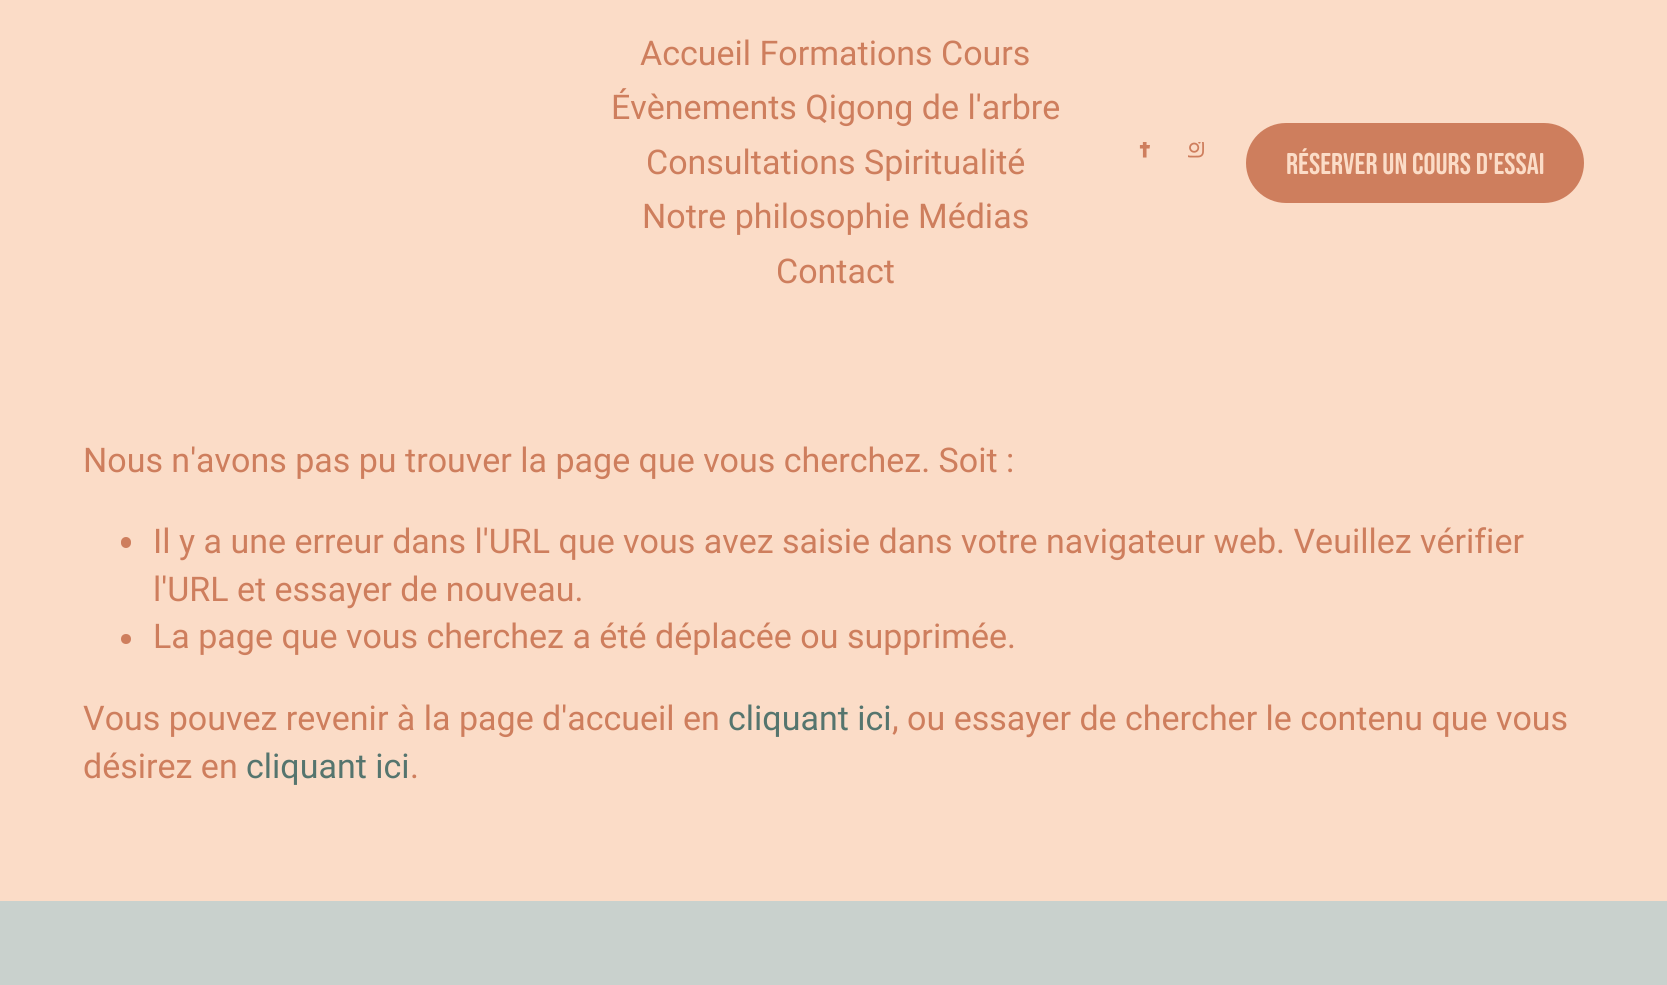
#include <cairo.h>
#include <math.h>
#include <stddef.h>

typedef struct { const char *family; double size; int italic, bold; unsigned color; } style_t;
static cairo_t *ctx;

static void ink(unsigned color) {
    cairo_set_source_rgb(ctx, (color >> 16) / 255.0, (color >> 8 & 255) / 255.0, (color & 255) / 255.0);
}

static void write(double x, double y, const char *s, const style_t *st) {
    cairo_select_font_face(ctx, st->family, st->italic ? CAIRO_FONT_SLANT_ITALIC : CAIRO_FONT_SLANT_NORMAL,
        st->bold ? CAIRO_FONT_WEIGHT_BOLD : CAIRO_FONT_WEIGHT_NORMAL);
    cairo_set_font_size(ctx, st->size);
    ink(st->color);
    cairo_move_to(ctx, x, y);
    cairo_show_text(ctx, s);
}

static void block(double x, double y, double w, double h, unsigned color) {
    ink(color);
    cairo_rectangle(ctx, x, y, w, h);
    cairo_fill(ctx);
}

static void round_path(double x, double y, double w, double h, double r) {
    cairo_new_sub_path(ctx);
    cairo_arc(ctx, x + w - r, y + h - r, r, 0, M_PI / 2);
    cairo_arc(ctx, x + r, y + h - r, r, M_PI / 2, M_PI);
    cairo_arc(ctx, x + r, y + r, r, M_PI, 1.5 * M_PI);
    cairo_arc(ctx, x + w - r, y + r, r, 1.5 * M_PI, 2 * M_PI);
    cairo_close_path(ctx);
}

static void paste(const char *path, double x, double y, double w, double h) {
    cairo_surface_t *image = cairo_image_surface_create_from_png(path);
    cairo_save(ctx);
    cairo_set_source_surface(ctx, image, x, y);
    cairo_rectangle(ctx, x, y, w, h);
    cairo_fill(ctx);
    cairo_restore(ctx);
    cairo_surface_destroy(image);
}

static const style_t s1 = {"Roboto", 34, 0, 0, 0xce7e5d};
static const style_t s2 = {"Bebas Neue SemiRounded", 30, 0, 0, 0xfbdcc7};
static const style_t s3 = {"Roboto", 34, 0, 0, 0x55756e};

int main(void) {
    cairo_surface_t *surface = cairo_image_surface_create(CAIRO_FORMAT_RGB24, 1667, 985);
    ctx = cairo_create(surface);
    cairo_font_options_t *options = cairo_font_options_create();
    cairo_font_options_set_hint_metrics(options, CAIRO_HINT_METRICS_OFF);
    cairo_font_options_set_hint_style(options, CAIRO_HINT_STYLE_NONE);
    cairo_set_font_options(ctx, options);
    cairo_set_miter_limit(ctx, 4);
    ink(0xfbdcc7);
    cairo_paint(ctx);
    write(640, 65, "Accueil Formations Cours", &s1);
    write(611, 119, "Évènements Qigong de l'arbre", &s1);
    write(646, 174, "Consultations Spiritualité", &s1);
    write(642, 228, "Notre philosophie Médias", &s1);
    write(776, 283, "Contact", &s1);
    paste("pic1.png", 1139, 142, 11, 16);
    paste("pic2.png", 1188, 142, 16, 16);
    round_path(1246, 123, 338, 80, 40);
    cairo_fill(ctx);
    write(1286, 174, "RÉSERVER UN COURS D'ESSAI", &s2);
    write(83, 472, "Nous n'avons pas pu trouver la page que vous cherchez. Soit :", &s1);
    round_path(121, 537, 10, 11, 5);
    cairo_fill(ctx);
    write(153, 553, "Il y a une erreur dans l'URL que vous avez saisie dans votre navigateur web. Veuillez vérifier", &s1);
    write(153, 601, "l'URL et essayer de nouveau.", &s1);
    cairo_new_path(ctx);
    cairo_arc(ctx, 126, 639, 5, 0, 2 * M_PI);
    cairo_fill(ctx);
    write(153, 648, "La page que vous cherchez a été déplacée ou supprimée.", &s1);
    write(83, 730, "Vous pouvez revenir à la page d'accueil en", &s1);
    write(728, 730, "cliquant ici", &s3);
    write(892, 730, ", ou essayer de chercher le contenu que vous", &s1);
    write(83, 778, "désirez en", &s1);
    write(246, 778, "cliquant ici", &s3);
    write(410, 778, ".", &s1);
    block(0, 901, 1667, 84, 0xc9d1cd);
    cairo_surface_write_to_png(surface, "screenshot.png");
    cairo_font_options_destroy(options);
    cairo_destroy(ctx);
    cairo_surface_destroy(surface);
    return 0;
}
